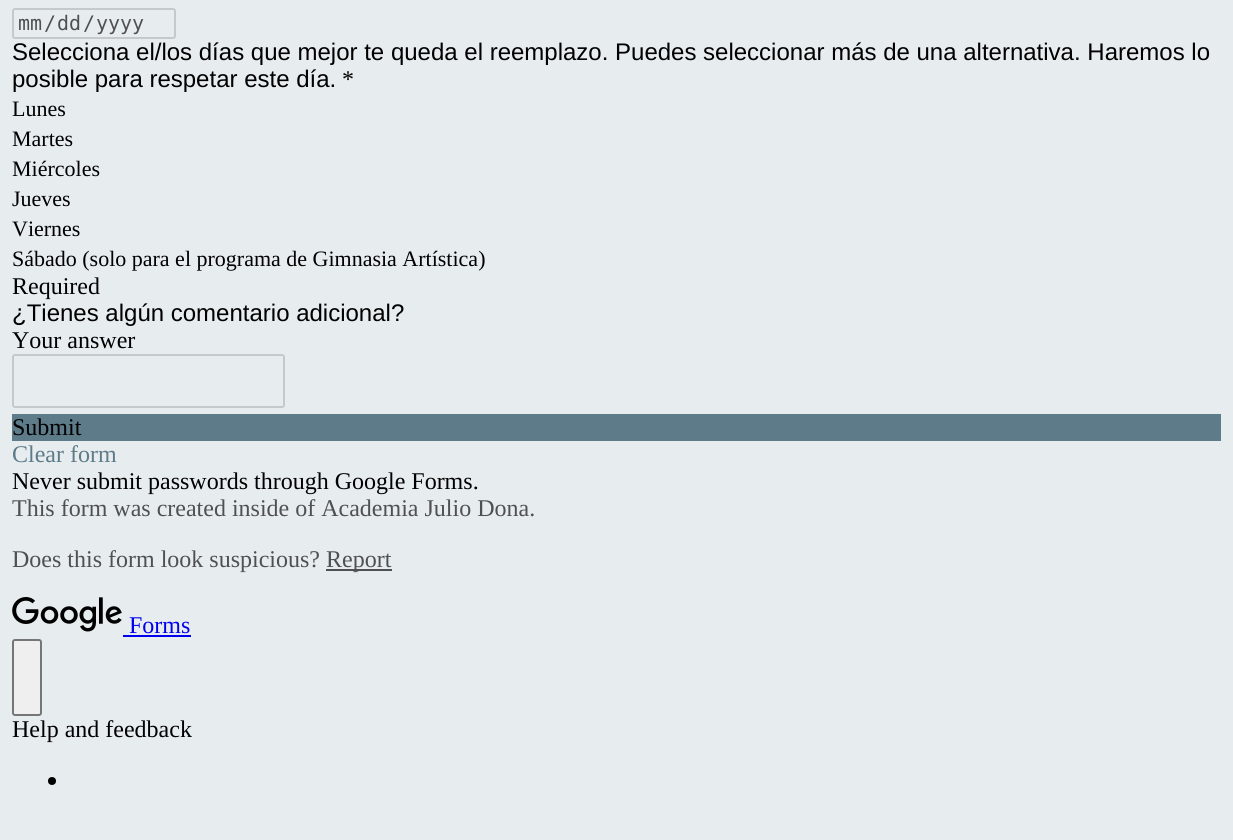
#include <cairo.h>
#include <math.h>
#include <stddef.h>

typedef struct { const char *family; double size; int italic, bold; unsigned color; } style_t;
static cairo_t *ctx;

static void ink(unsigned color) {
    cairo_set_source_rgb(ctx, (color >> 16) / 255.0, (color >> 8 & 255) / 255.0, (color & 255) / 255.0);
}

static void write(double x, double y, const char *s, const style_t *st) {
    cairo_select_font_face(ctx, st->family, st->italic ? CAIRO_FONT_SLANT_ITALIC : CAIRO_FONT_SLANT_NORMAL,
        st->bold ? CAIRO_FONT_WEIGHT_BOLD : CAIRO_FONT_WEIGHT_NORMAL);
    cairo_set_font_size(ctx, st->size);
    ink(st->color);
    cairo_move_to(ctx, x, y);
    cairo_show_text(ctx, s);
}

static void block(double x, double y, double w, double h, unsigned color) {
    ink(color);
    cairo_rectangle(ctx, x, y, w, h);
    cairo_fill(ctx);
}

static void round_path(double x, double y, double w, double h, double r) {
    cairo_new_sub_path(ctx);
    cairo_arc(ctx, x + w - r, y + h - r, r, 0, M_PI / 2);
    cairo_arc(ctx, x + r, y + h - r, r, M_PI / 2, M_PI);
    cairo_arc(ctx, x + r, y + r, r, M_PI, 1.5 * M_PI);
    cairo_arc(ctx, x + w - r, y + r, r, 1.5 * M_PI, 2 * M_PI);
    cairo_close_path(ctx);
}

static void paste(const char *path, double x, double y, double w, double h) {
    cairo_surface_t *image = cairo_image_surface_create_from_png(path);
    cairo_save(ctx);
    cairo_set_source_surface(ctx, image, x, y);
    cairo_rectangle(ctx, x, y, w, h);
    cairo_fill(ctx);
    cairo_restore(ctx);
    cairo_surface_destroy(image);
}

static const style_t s1 = {"DejaVu Sans Mono", 20, 0, 0, 0x4f5051};
static const style_t s2 = {"Liberation Sans", 24, 0, 0, 0x000000};
static const style_t s3 = {"Liberation Serif", 24, 0, 0, 0x000000};
static const style_t s4 = {"Liberation Serif", 22, 0, 0, 0x000000};
static const style_t s5 = {"Liberation Serif", 24, 0, 0, 0x5d7b89};
static const style_t s6 = {"Liberation Serif", 24, 0, 0, 0x4f5051};
static const style_t s7 = {"Liberation Serif", 24, 0, 0, 0x0000ee};

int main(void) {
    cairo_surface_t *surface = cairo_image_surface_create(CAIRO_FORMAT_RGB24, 1233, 840);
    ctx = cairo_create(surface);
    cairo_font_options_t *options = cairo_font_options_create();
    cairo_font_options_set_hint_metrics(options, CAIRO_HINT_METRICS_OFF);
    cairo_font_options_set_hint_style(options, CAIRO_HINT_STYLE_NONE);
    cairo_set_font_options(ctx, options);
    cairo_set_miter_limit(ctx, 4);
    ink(0xe7ecee);
    cairo_paint(ctx);
    round_path(13, 9, 162, 29, 2);
    ink(0xc6c9ca);
    cairo_stroke(ctx);
    write(18, 30, "mm", &s1);
    write(44, 30, "/", &s1);
    write(57, 30, "dd", &s1);
    write(83, 30, "/", &s1);
    write(96, 30, "yyyy", &s1);
    write(12, 60, "Selecciona el/los días que mejor te queda el reemplazo. Puedes seleccionar más de una alternativa. Haremos lo", &s2);
    write(12, 87, "posible para respetar este día.", &s2);
    write(342, 87, "*", &s3);
    write(12, 116, "Lunes", &s4);
    write(12, 146, "Martes", &s4);
    write(12, 176, "Miércoles", &s4);
    write(12, 206, "Jueves", &s4);
    write(12, 236, "Viernes", &s4);
    write(12, 266, "Sábado (solo para el programa de Gimnasia Artística)", &s4);
    write(12, 294, "Required", &s3);
    write(12, 321, "¿Tienes algún comentario adicional?", &s2);
    write(12, 348, "Your answer", &s3);
    round_path(13, 355, 271, 52, 2);
    ink(0xc6c9ca);
    cairo_stroke(ctx);
    block(12, 414, 1209, 27, 0x5d7b89);
    write(12, 435, "Submit", &s3);
    write(12, 462, "Clear form", &s5);
    write(12, 489, "Never submit passwords through Google Forms.", &s3);
    write(12, 516, "This form was created inside of Academia Julio Dona.", &s6);
    write(12, 567, "Does this form look suspicious?", &s6);
    block(326, 569, 66, 2, 0x4f5051);
    write(326, 567, "Report", &s6);
    paste("pic1.png", 12, 597, 110, 35);
    write(129, 633, "Forms", &s7);
    block(123, 635, 68, 2, 0x0000ee);
    ink(0xefefef);
    round_path(13, 640, 28, 75, 2);
    cairo_fill_preserve(ctx);
    ink(0x767676);
    cairo_stroke(ctx);
    write(12, 737, "Help and feedback", &s3);
    cairo_new_path(ctx);
    cairo_arc(ctx, 52, 781, 4, 0, 2 * M_PI);
    cairo_fill(ctx);
    cairo_surface_write_to_png(surface, "screenshot.png");
    cairo_font_options_destroy(options);
    cairo_destroy(ctx);
    cairo_surface_destroy(surface);
    return 0;
}
